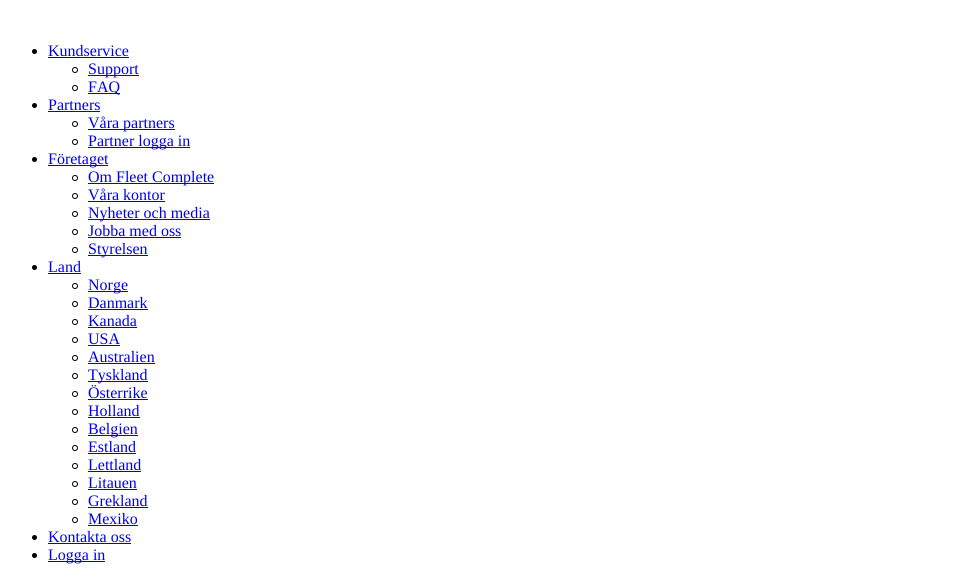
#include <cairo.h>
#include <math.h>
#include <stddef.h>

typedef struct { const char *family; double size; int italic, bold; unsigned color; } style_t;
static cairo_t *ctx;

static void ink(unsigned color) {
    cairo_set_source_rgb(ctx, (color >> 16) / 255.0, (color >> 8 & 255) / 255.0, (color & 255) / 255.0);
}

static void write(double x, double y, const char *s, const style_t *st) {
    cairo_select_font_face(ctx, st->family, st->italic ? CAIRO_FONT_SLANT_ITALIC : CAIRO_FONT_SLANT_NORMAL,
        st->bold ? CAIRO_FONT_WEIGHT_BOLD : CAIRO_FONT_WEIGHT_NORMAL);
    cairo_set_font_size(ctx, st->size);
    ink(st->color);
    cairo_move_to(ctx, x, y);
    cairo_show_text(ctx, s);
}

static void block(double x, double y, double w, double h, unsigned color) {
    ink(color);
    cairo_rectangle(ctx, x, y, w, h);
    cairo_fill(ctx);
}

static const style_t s1 = {"Liberation Serif", 16, 0, 0, 0x0000ee};

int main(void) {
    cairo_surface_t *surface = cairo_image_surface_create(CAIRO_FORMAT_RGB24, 969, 588);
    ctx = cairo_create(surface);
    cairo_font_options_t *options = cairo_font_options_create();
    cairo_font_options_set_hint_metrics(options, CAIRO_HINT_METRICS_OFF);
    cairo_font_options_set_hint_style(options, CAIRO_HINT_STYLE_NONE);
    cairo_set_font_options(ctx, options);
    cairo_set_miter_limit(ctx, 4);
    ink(0xffffff);
    cairo_paint(ctx);
    ink(0x000000);
    cairo_arc(ctx, 34.5, 51.5, 2.5, 0, 2 * M_PI);
    cairo_fill(ctx);
    write(48, 56, "Kundservice", &s1);
    block(48, 57, 81, 1, 0x0000ee);
    cairo_new_path(ctx);
    cairo_arc(ctx, 75, 70, 2.5, 0, 2 * M_PI);
    ink(0x000000);
    cairo_set_line_width(ctx, 1);
    cairo_stroke(ctx);
    block(88, 75, 51, 1, 0x0000ee);
    write(88, 74, "Support", &s1);
    cairo_new_path(ctx);
    cairo_arc(ctx, 75, 88, 2.5, 0, 2 * M_PI);
    ink(0x000000);
    cairo_stroke(ctx);
    block(88, 93, 32, 1, 0x0000ee);
    write(88, 92, "FAQ", &s1);
    ink(0x000000);
    cairo_new_path(ctx);
    cairo_arc(ctx, 34.5, 105.5, 2.5, 0, 2 * M_PI);
    cairo_fill(ctx);
    write(48, 110, "Partners", &s1);
    block(48, 111, 52, 1, 0x0000ee);
    cairo_new_path(ctx);
    cairo_arc(ctx, 75, 124, 2.5, 0, 2 * M_PI);
    ink(0x000000);
    cairo_stroke(ctx);
    block(88, 129, 87, 1, 0x0000ee);
    write(88, 128, "Våra partners", &s1);
    cairo_new_path(ctx);
    cairo_arc(ctx, 75, 142, 2.5, 0, 2 * M_PI);
    ink(0x000000);
    cairo_stroke(ctx);
    block(88, 147, 102, 1, 0x0000ee);
    write(88, 146, "Partner logga in", &s1);
    ink(0x000000);
    cairo_new_path(ctx);
    cairo_arc(ctx, 34.5, 159.5, 2.5, 0, 2 * M_PI);
    cairo_fill(ctx);
    block(48, 165, 60, 1, 0x0000ee);
    write(48, 164, "Företaget", &s1);
    cairo_new_path(ctx);
    cairo_arc(ctx, 75, 178, 2.5, 0, 2 * M_PI);
    ink(0x000000);
    cairo_stroke(ctx);
    block(88, 183, 126, 1, 0x0000ee);
    write(88, 182, "Om Fleet Complete", &s1);
    cairo_new_path(ctx);
    cairo_arc(ctx, 75, 196, 2.5, 0, 2 * M_PI);
    ink(0x000000);
    cairo_stroke(ctx);
    write(88, 200, "Våra kontor", &s1);
    block(88, 201, 77, 1, 0x0000ee);
    cairo_new_path(ctx);
    cairo_arc(ctx, 75, 214, 2.5, 0, 2 * M_PI);
    ink(0x000000);
    cairo_stroke(ctx);
    block(88, 219, 122, 1, 0x0000ee);
    write(88, 218, "Nyheter och media", &s1);
    cairo_new_path(ctx);
    cairo_arc(ctx, 75, 232, 2.5, 0, 2 * M_PI);
    ink(0x000000);
    cairo_stroke(ctx);
    write(88, 236, "Jobba med oss", &s1);
    block(88, 237, 93, 1, 0x0000ee);
    cairo_new_path(ctx);
    cairo_arc(ctx, 75, 250, 2.5, 0, 2 * M_PI);
    ink(0x000000);
    cairo_stroke(ctx);
    block(88, 255, 60, 1, 0x0000ee);
    write(88, 254, "Styrelsen", &s1);
    ink(0x000000);
    cairo_new_path(ctx);
    cairo_arc(ctx, 34.5, 267.5, 2.5, 0, 2 * M_PI);
    cairo_fill(ctx);
    write(48, 272, "Land", &s1);
    block(48, 273, 33, 1, 0x0000ee);
    cairo_new_path(ctx);
    cairo_arc(ctx, 75, 286, 2.5, 0, 2 * M_PI);
    ink(0x000000);
    cairo_stroke(ctx);
    block(88, 291, 40, 1, 0x0000ee);
    write(88, 290, "Norge", &s1);
    cairo_new_path(ctx);
    cairo_arc(ctx, 75, 304, 2.5, 0, 2 * M_PI);
    ink(0x000000);
    cairo_stroke(ctx);
    write(88, 308, "Danmark", &s1);
    block(88, 309, 60, 1, 0x0000ee);
    cairo_new_path(ctx);
    cairo_arc(ctx, 75, 322, 2.5, 0, 2 * M_PI);
    ink(0x000000);
    cairo_stroke(ctx);
    write(88, 326, "Kanada", &s1);
    block(88, 327, 49, 1, 0x0000ee);
    cairo_new_path(ctx);
    cairo_arc(ctx, 75, 340, 2.5, 0, 2 * M_PI);
    ink(0x000000);
    cairo_stroke(ctx);
    write(88, 344, "USA", &s1);
    block(88, 345, 32, 1, 0x0000ee);
    cairo_new_path(ctx);
    cairo_arc(ctx, 75, 358, 2.5, 0, 2 * M_PI);
    ink(0x000000);
    cairo_stroke(ctx);
    write(88, 362, "Australien", &s1);
    block(88, 363, 67, 1, 0x0000ee);
    cairo_new_path(ctx);
    cairo_arc(ctx, 75, 376, 2.5, 0, 2 * M_PI);
    ink(0x000000);
    cairo_stroke(ctx);
    block(88, 381, 60, 1, 0x0000ee);
    write(88, 380, "Tyskland", &s1);
    cairo_new_path(ctx);
    cairo_arc(ctx, 75, 394, 2.5, 0, 2 * M_PI);
    ink(0x000000);
    cairo_stroke(ctx);
    write(88, 398, "Österrike", &s1);
    block(88, 399, 60, 1, 0x0000ee);
    cairo_new_path(ctx);
    cairo_arc(ctx, 75, 412, 2.5, 0, 2 * M_PI);
    ink(0x000000);
    cairo_stroke(ctx);
    write(88, 416, "Holland", &s1);
    block(88, 417, 52, 1, 0x0000ee);
    cairo_new_path(ctx);
    cairo_arc(ctx, 75, 430, 2.5, 0, 2 * M_PI);
    ink(0x000000);
    cairo_stroke(ctx);
    block(88, 435, 50, 1, 0x0000ee);
    write(88, 434, "Belgien", &s1);
    cairo_new_path(ctx);
    cairo_arc(ctx, 75, 448, 2.5, 0, 2 * M_PI);
    ink(0x000000);
    cairo_stroke(ctx);
    write(88, 452, "Estland", &s1);
    block(88, 453, 48, 1, 0x0000ee);
    cairo_new_path(ctx);
    cairo_arc(ctx, 75, 466, 2.5, 0, 2 * M_PI);
    ink(0x000000);
    cairo_stroke(ctx);
    write(88, 470, "Lettland", &s1);
    block(88, 471, 53, 1, 0x0000ee);
    cairo_new_path(ctx);
    cairo_arc(ctx, 75, 484, 2.5, 0, 2 * M_PI);
    ink(0x000000);
    cairo_stroke(ctx);
    write(88, 488, "Litauen", &s1);
    block(88, 489, 49, 1, 0x0000ee);
    cairo_new_path(ctx);
    cairo_arc(ctx, 75, 502, 2.5, 0, 2 * M_PI);
    ink(0x000000);
    cairo_stroke(ctx);
    write(88, 506, "Grekland", &s1);
    block(88, 507, 60, 1, 0x0000ee);
    cairo_new_path(ctx);
    cairo_arc(ctx, 75, 520, 2.5, 0, 2 * M_PI);
    ink(0x000000);
    cairo_stroke(ctx);
    write(88, 524, "Mexiko", &s1);
    block(88, 525, 50, 1, 0x0000ee);
    ink(0x000000);
    cairo_new_path(ctx);
    cairo_arc(ctx, 34.5, 537.5, 2.5, 0, 2 * M_PI);
    cairo_fill(ctx);
    write(48, 542, "Kontakta oss", &s1);
    block(48, 543, 83, 1, 0x0000ee);
    ink(0x000000);
    cairo_new_path(ctx);
    cairo_arc(ctx, 34.5, 555.5, 2.5, 0, 2 * M_PI);
    cairo_fill(ctx);
    block(48, 561, 57, 1, 0x0000ee);
    write(48, 560, "Logga in", &s1);
    cairo_surface_write_to_png(surface, "screenshot.png");
    cairo_font_options_destroy(options);
    cairo_destroy(ctx);
    cairo_surface_destroy(surface);
    return 0;
}
